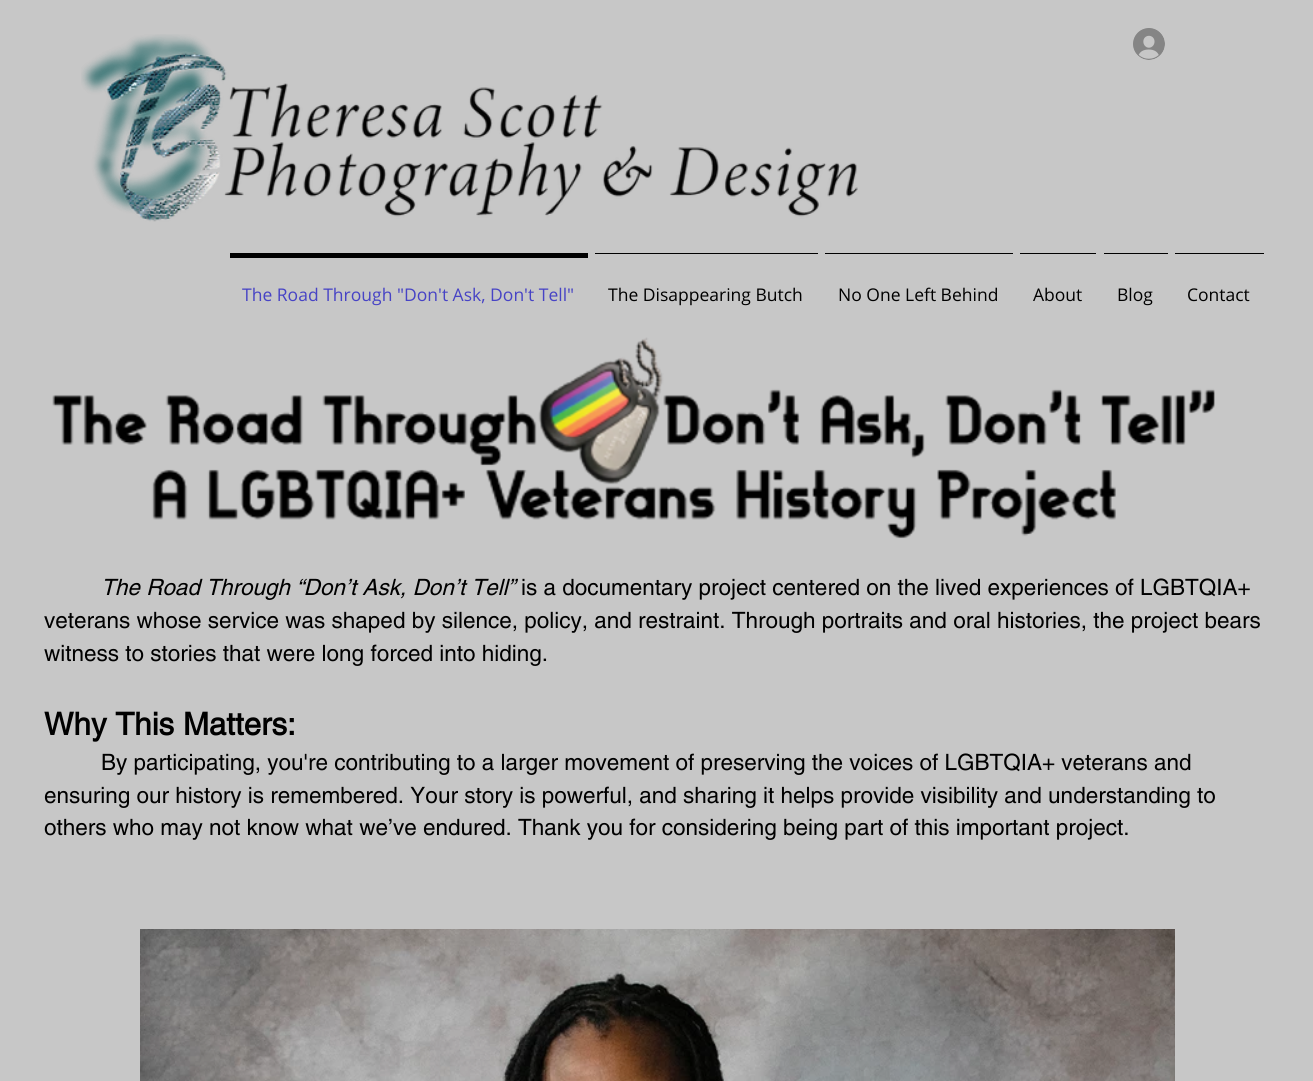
#include <cairo.h>
#include <math.h>
#include <stddef.h>

typedef struct { const char *family; double size; int italic, bold; unsigned color; } style_t;
static cairo_t *ctx;

static void ink(unsigned color) {
    cairo_set_source_rgb(ctx, (color >> 16) / 255.0, (color >> 8 & 255) / 255.0, (color & 255) / 255.0);
}

static void write(double x, double y, const char *s, const style_t *st) {
    cairo_select_font_face(ctx, st->family, st->italic ? CAIRO_FONT_SLANT_ITALIC : CAIRO_FONT_SLANT_NORMAL,
        st->bold ? CAIRO_FONT_WEIGHT_BOLD : CAIRO_FONT_WEIGHT_NORMAL);
    cairo_set_font_size(ctx, st->size);
    ink(st->color);
    cairo_move_to(ctx, x, y);
    cairo_show_text(ctx, s);
}

static void block(double x, double y, double w, double h, unsigned color) {
    ink(color);
    cairo_rectangle(ctx, x, y, w, h);
    cairo_fill(ctx);
}

static void paste(const char *path, double x, double y, double w, double h) {
    cairo_surface_t *image = cairo_image_surface_create_from_png(path);
    cairo_save(ctx);
    cairo_set_source_surface(ctx, image, x, y);
    cairo_rectangle(ctx, x, y, w, h);
    cairo_fill(ctx);
    cairo_restore(ctx);
    cairo_surface_destroy(image);
}

static const style_t s1 = {"Open Sans", 17.5, 0, 0, 0x4743c5};
static const style_t s2 = {"Open Sans", 17.5, 0, 0, 0x000000};
static const style_t s3 = {"helvetica", 22.5, 1, 0, 0x000000};
static const style_t s4 = {"helvetica", 22.5, 0, 0, 0x000000};
static const style_t s5 = {"helvetica", 31.25, 0, 1, 0x000000};

int main(void) {
    cairo_surface_t *surface = cairo_image_surface_create(CAIRO_FORMAT_RGB24, 1313, 1081);
    ctx = cairo_create(surface);
    cairo_font_options_t *options = cairo_font_options_create();
    cairo_font_options_set_hint_metrics(options, CAIRO_HINT_METRICS_OFF);
    cairo_font_options_set_hint_style(options, CAIRO_HINT_STYLE_NONE);
    cairo_set_font_options(ctx, options);
    cairo_set_miter_limit(ctx, 4);
    ink(0xc7c7c7);
    cairo_paint(ctx);
    paste("pic1.png", 81, 34, 777, 188);
    paste("pic2.png", 1133, 28, 32, 32);
    block(230, 253, 358, 5, 0x000000);
    write(242, 301, "The Road Through \"Don't Ask, Don't Tell\"", &s1);
    block(595, 253, 223, 1, 0x000000);
    write(608, 301, "The Disappearing Butch", &s2);
    block(825, 253, 188, 1, 0x000000);
    write(838, 301, "No One Left Behind", &s2);
    block(1020, 253, 76, 1, 0x000000);
    write(1033, 301, "About", &s2);
    block(1104, 253, 64, 1, 0x000000);
    write(1117, 301, "Blog", &s2);
    block(1175, 253, 89, 1, 0x000000);
    write(1187, 301, "Contact", &s2);
    paste("pic3.png", 52, 337, 1163, 202);
    write(101, 595, "The Road Through “Don’t Ask, Don’t Tell”", &s3);
    write(521, 595, "is a documentary project centered on the lived experiences of LGBTQIA+", &s4);
    write(44, 628, "veterans whose service was shaped by silence, policy, and restraint. Through portraits and oral histories, the project bears", &s4);
    write(44, 661, "witness to stories that were long forced into hiding.", &s4);
    write(44, 735, "Why This Matters:", &s5);
    write(101, 770, "By participating, you're contributing to a larger movement of preserving the voices of LGBTQIA+ veterans and", &s4);
    write(44, 803, "ensuring our history is remembered. Your story is powerful, and sharing it helps provide visibility and understanding to", &s4);
    write(44, 835, "others who may not know what we’ve endured. Thank you for considering being part of this important project.", &s4);
    paste("pic4.png", 140, 929, 1035, 152);
    cairo_surface_write_to_png(surface, "screenshot.png");
    cairo_font_options_destroy(options);
    cairo_destroy(ctx);
    cairo_surface_destroy(surface);
    return 0;
}
